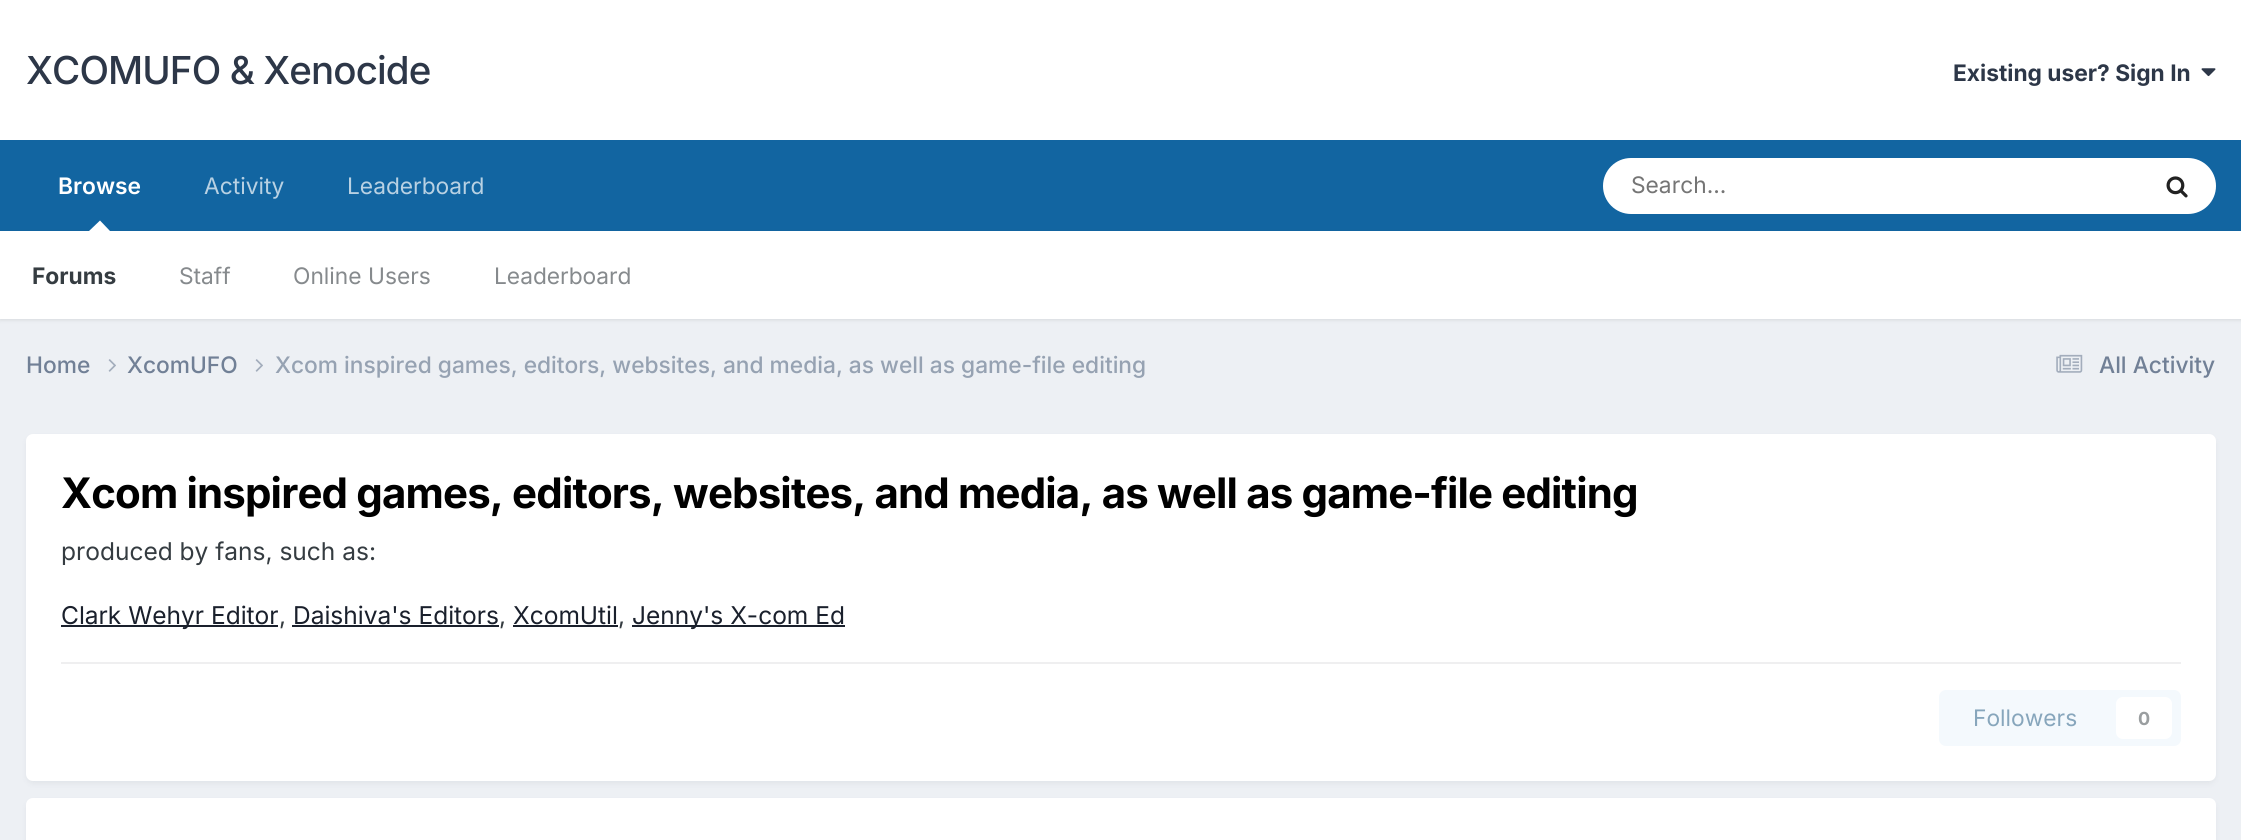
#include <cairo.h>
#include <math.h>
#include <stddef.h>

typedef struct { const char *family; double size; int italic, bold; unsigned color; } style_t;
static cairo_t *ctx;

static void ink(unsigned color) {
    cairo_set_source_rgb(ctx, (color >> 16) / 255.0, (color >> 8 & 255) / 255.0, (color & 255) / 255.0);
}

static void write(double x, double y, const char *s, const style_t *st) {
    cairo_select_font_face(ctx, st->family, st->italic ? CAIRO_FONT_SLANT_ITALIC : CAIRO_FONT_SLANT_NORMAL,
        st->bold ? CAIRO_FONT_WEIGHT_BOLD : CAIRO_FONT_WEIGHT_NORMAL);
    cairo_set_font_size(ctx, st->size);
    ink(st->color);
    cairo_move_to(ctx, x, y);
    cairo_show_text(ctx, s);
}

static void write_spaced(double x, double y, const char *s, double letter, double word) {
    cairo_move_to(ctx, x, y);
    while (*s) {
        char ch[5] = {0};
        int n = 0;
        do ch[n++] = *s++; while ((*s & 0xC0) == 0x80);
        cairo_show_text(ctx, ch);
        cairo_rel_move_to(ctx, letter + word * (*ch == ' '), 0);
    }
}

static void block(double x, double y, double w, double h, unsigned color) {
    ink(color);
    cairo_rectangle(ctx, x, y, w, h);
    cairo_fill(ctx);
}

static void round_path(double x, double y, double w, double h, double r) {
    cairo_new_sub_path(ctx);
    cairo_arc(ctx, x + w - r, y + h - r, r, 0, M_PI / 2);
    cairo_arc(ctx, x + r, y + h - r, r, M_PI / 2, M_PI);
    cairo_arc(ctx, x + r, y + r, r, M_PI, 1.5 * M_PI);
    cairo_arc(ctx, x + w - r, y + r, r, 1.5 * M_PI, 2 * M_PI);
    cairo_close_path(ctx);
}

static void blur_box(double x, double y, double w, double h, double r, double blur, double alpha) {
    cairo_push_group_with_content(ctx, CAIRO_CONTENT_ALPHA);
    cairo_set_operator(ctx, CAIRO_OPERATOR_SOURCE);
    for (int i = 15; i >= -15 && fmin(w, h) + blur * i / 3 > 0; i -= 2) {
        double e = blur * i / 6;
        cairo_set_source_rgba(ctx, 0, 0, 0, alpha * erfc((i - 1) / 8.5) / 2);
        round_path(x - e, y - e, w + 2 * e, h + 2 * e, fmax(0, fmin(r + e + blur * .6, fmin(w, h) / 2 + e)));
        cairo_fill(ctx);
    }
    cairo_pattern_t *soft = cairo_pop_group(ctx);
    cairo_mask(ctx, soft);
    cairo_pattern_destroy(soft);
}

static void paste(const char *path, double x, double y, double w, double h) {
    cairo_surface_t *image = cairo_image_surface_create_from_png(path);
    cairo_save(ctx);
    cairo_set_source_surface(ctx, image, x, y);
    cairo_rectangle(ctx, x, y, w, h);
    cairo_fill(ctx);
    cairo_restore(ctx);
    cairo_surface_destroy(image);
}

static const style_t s1 = {"Inter", 22.75, 0, 1, 0x2d3748};
static const style_t s2 = {"Inter", 22.75, 0, 0, 0xb8d1e3};
static const style_t s3 = {"Inter SemiBold", 22.75, 0, 0, 0xffffff};
static const style_t s4 = {"Inter", 22.75, 0, 1, 0x353c41};
static const style_t s5 = {"Inter", 22.75, 0, 0, 0x868a8d};
static const style_t s6 = {"Inter", 22.75, 0, 0, 0x757575};
static const style_t s7 = {"Inter Medium", 22.75, 0, 0, 0x718096};
static const style_t s8 = {"Inter Medium", 22.75, 0, 0, 0x96a2b2};
static const style_t s9 = {"Inter", 24.5, 0, 0, 0x353c41};
static const style_t s10 = {"Inter", 24.5, 0, 0, 0x1a202c};
static const style_t s11 = {"Inter", 22.75, 0, 0, 0x87a6bc};
static const style_t s12 = {"Inter", 18, 0, 1, 0x9a9ea0};

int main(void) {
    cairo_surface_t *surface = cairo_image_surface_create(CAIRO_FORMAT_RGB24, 2241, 840);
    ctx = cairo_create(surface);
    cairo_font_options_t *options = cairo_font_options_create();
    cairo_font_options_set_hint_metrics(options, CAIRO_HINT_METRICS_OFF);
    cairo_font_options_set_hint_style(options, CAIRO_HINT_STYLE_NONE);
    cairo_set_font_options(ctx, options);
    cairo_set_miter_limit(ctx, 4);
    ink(0xedf0f4);
    cairo_paint(ctx);
    block(0, 0, 2241, 140, 0xffffff);
    cairo_select_font_face(ctx, "Inter Medium", CAIRO_FONT_SLANT_NORMAL, CAIRO_FONT_WEIGHT_NORMAL);
    cairo_set_font_size(ctx, 38.5);
    ink(0x2d3748);
    write_spaced(26, 84, "XCOMUFO & Xenocide", -0.9, 0);
    write(1953, 81, "Existing user? Sign In", &s1);
    paste("pic1.png", 2201, 68, 15, 9);
    block(0, 140, 2241, 91, 0x1265a1);
    write(204, 194, "Activity", &s2);
    write(58, 194, "Browse", &s3);
    ink(0x000000);
    blur_box(0, 233, 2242, 87, 0, 2, 0.1);
    ink(0xffffff);
    cairo_new_path(ctx);
    cairo_move_to(ctx, 110, 231);
    cairo_line_to(ctx, 89, 231);
    cairo_line_to(ctx, 100, 220.5);
    cairo_close_path(ctx);
    cairo_fill(ctx);
    block(0, 231, 2241, 88, 0xffffff);
    write(32, 284, "Forums", &s4);
    write(179, 284, "Staff", &s5);
    write(293, 284, "Online Users", &s5);
    write(494, 284, "Leaderboard", &s5);
    write(347, 194, "Leaderboard", &s2);
    ink(0xffffff);
    round_path(1603, 158, 613, 56, 28);
    cairo_fill(ctx);
    write(1631, 193, "Search...", &s6);
    paste("pic2.png", 2166, 176, 22, 22);
    write(26, 373, "Home", &s7);
    paste("pic3.png", 108, 359, 8, 13);
    write(127, 373, "XcomUFO", &s7);
    paste("pic3.png", 255, 359, 8, 13);
    write(275, 373, "Xcom inspired games, editors, websites, and media, as well as game-file editing", &s8);
    paste("pic4.png", 2056, 354, 27, 19);
    write(2099, 373, "All Activity", &s7);
    ink(0x2d3748);
    blur_box(28, 439, 2186, 343, 5, 3.5, 0.1);
    ink(0xffffff);
    round_path(26, 434, 2190, 347, 7);
    cairo_fill(ctx);
    cairo_select_font_face(ctx, "Inter", CAIRO_FONT_SLANT_NORMAL, CAIRO_FONT_WEIGHT_BOLD);
    cairo_set_font_size(ctx, 42);
    ink(0x000000);
    write_spaced(61, 508, "Xcom inspired games, editors, websites, and media, as well as game-file editing", -0.85, 0);
    write(61, 560, "produced by fans, such as:", &s9);
    block(61, 625, 217, 2, 0x1a202c);
    write(61, 624, "Clark Wehyr Editor", &s10);
    write(279, 624, ",", &s9);
    write(293, 624, "Daishiva's Editors", &s10);
    block(292, 625, 207, 2, 0x1a202c);
    write(499, 624, ",", &s9);
    write(513, 624, "XcomUtil", &s10);
    block(513, 625, 105, 2, 0x1a202c);
    write(618, 624, ",", &s9);
    block(632, 625, 213, 2, 0x1a202c);
    write(632, 624, "Jenny's X-com Ed", &s10);
    block(61, 662, 2120, 2, 0xefeff0);
    ink(0xf4f9fd);
    round_path(1939, 690, 242, 56, 7);
    cairo_fill(ctx);
    write(1973, 726, "Followers", &s11);
    ink(0xffffff);
    round_path(2116, 697, 56, 42, 7);
    cairo_fill(ctx);
    write(2138, 725, "0", &s12);
    ink(0x2d3748);
    blur_box(28, 803, 2186, 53, 5, 3.5, 0.1);
    ink(0xffffff);
    cairo_new_path(ctx);
    cairo_move_to(ctx, 33, 798);
    cairo_line_to(ctx, 2209, 798);
    cairo_curve_to(ctx, 2213, 798, 2216, 801, 2216, 805);
    cairo_line_to(ctx, 2216, 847);
    cairo_line_to(ctx, 26, 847);
    cairo_line_to(ctx, 26, 805);
    cairo_curve_to(ctx, 26, 801, 29, 798, 33, 798);
    cairo_close_path(ctx);
    cairo_fill(ctx);
    cairo_surface_write_to_png(surface, "screenshot.png");
    cairo_font_options_destroy(options);
    cairo_destroy(ctx);
    cairo_surface_destroy(surface);
    return 0;
}
